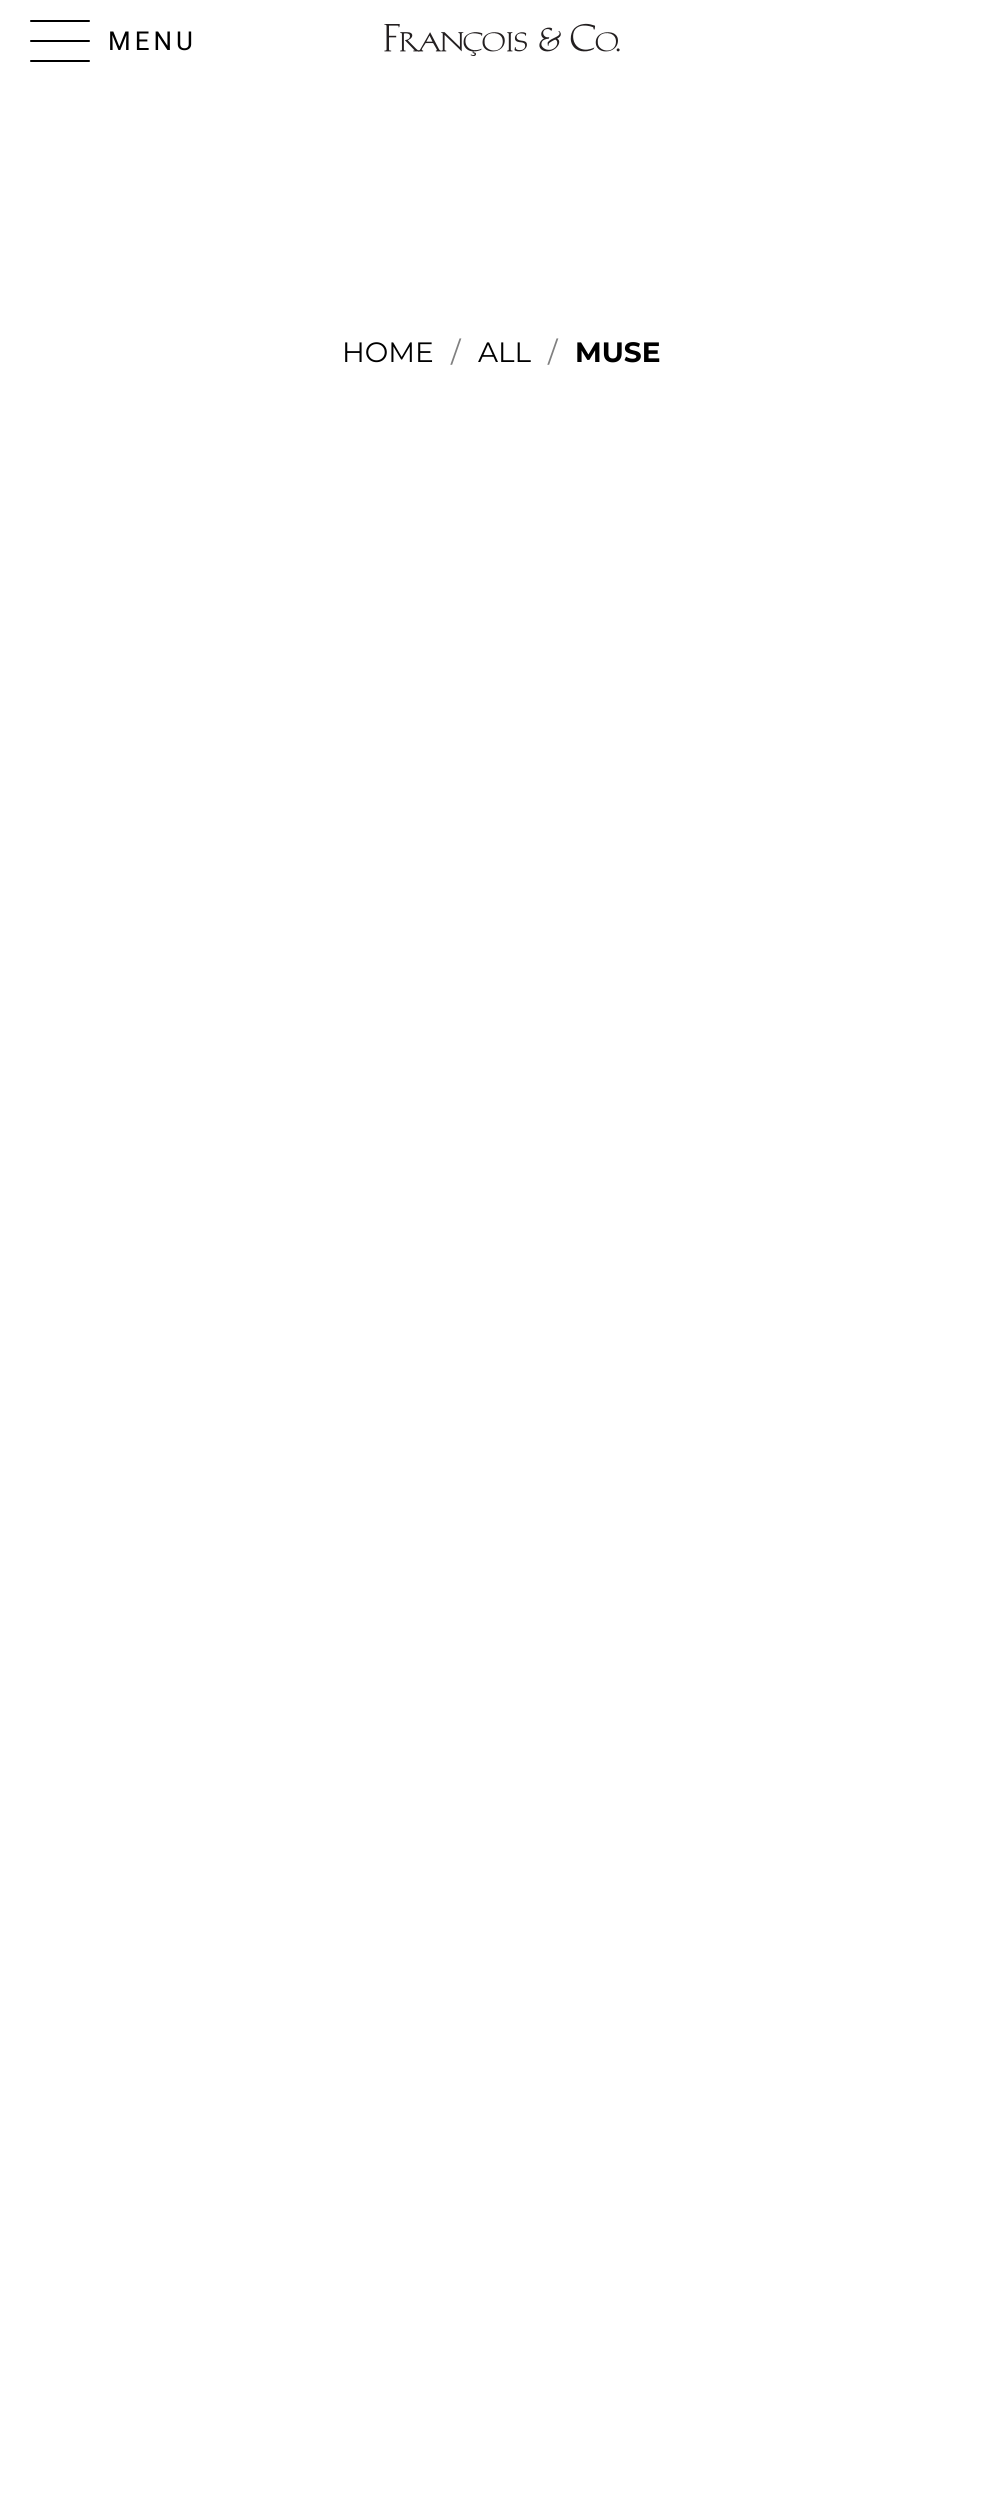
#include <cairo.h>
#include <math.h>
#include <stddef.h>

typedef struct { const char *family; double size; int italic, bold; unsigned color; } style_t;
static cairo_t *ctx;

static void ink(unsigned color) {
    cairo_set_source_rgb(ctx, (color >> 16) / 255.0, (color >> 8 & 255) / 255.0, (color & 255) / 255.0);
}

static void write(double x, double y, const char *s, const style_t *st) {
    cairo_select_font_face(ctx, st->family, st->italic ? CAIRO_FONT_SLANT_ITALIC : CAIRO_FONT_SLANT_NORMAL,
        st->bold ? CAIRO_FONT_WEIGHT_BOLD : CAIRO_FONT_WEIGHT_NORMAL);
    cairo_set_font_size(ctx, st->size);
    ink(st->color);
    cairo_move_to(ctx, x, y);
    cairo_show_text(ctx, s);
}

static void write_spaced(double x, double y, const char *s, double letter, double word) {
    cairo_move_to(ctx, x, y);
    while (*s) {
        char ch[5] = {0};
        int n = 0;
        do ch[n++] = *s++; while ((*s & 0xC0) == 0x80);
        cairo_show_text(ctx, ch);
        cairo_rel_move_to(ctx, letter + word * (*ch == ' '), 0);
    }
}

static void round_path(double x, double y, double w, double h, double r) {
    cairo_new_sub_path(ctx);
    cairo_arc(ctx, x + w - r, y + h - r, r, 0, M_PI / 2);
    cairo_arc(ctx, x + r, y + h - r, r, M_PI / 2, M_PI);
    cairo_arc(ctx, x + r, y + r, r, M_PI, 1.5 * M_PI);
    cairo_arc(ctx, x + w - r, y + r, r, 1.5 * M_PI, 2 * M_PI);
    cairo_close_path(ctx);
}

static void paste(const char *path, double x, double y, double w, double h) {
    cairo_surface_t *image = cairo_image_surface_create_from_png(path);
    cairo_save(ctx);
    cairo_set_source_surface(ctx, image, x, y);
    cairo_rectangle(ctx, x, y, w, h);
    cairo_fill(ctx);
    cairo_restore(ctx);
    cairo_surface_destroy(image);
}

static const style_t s1 = {"Montserrat", 28, 0, 0, 0x000000};
static const style_t s2 = {"Montserrat", 28, 0, 0, 0x808080};
static const style_t s3 = {"Montserrat", 28, 0, 1, 0x000000};

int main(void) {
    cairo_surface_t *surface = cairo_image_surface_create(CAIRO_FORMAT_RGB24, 1002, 2506);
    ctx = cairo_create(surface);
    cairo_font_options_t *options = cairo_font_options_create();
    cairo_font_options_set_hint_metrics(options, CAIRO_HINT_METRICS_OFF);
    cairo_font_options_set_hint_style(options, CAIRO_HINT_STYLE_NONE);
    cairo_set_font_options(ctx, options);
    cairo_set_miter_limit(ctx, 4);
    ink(0xffffff);
    cairo_paint(ctx);
    ink(0x000000);
    round_path(30, 20, 60, 2, 1);
    cairo_fill(ctx);
    round_path(30, 40, 60, 2, 1);
    cairo_fill(ctx);
    round_path(30, 60, 60, 2, 1);
    cairo_fill(ctx);
    cairo_select_font_face(ctx, "Roboto", CAIRO_FONT_SLANT_NORMAL, CAIRO_FONT_WEIGHT_NORMAL);
    cairo_set_font_size(ctx, 26);
    write_spaced(108, 50, "MENU", 4, 0);
    paste("pic1.png", 384, 23, 236, 33);
    write(342, 362, "HOME", &s1);
    write(451, 362, "/", &s2);
    write(478, 362, "ALL", &s1);
    write(548, 362, "/", &s2);
    write(575, 362, "MUSE", &s3);
    cairo_surface_write_to_png(surface, "screenshot.png");
    cairo_font_options_destroy(options);
    cairo_destroy(ctx);
    cairo_surface_destroy(surface);
    return 0;
}
